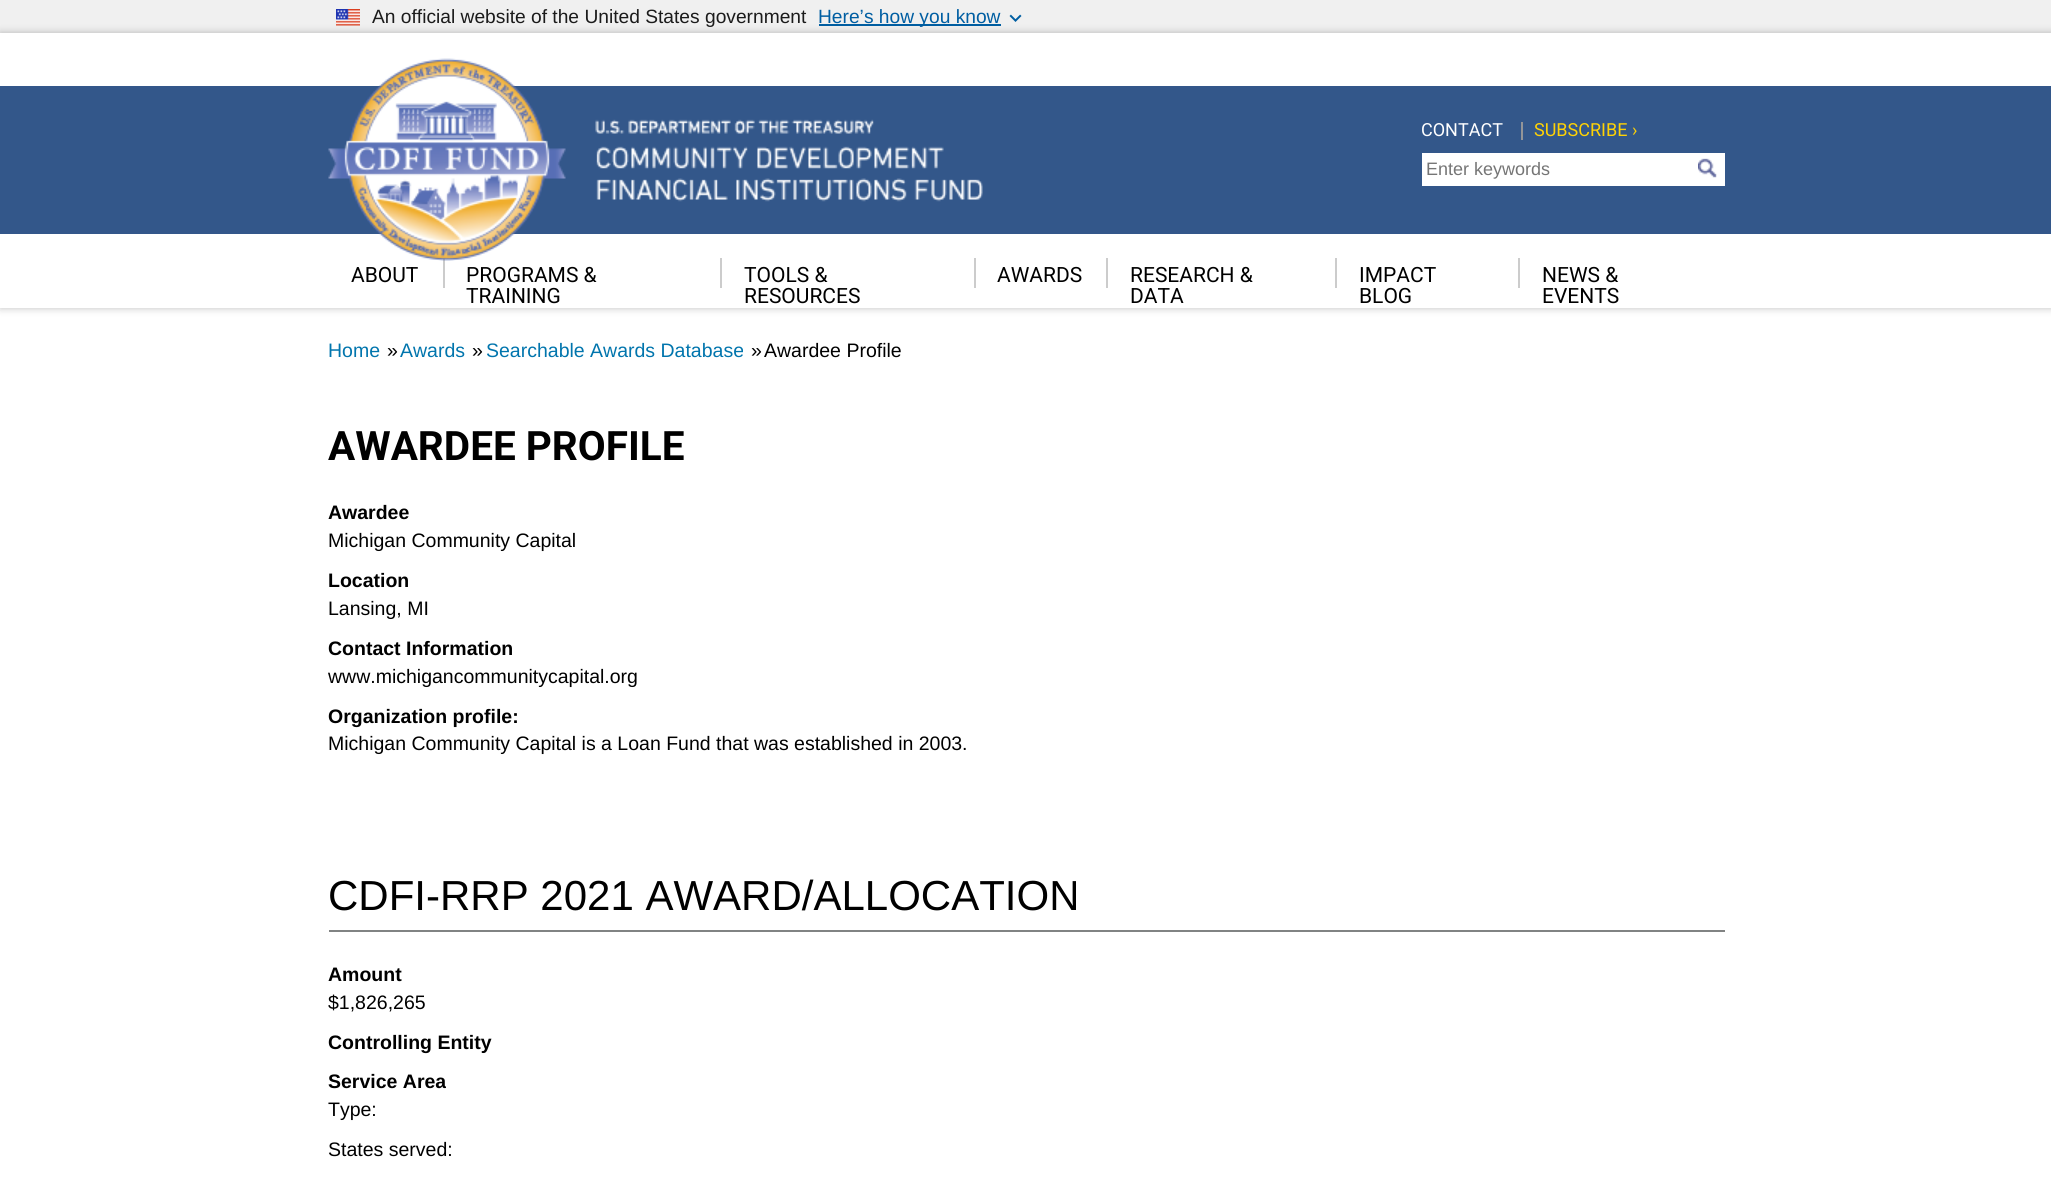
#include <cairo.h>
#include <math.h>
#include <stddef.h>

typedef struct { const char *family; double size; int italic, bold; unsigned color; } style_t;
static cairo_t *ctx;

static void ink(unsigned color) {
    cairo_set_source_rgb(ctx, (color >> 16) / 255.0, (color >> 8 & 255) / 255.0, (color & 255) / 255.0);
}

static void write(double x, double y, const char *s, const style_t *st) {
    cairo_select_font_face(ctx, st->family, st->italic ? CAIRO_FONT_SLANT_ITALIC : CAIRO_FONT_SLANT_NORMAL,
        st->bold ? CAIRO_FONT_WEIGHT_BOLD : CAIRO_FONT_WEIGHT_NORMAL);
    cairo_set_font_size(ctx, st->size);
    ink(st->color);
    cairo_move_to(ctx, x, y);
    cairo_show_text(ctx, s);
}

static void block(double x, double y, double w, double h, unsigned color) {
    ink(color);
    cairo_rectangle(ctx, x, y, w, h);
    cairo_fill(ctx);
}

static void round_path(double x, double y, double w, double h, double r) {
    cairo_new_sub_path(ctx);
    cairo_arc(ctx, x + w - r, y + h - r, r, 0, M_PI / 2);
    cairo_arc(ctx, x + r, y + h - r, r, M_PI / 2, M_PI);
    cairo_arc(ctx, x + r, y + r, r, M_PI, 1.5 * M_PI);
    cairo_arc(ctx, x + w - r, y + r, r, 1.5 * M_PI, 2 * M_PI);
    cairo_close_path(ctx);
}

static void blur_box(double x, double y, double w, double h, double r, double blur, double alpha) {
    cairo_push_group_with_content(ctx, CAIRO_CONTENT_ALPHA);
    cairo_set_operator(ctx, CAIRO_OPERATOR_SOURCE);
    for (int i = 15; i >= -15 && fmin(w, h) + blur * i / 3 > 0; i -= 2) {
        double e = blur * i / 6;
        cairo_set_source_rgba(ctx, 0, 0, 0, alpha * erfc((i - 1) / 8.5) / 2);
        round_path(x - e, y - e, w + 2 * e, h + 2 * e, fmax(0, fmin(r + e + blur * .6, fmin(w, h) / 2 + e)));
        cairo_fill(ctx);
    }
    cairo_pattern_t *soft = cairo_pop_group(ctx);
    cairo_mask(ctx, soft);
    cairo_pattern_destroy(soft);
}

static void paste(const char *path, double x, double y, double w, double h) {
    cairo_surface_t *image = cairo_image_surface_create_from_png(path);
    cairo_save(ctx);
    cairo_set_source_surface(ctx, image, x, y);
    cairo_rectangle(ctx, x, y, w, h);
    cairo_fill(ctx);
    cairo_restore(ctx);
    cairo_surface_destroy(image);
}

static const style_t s1 = {"Liberation Sans", 19.2, 0, 0, 0x1b1b1b};
static const style_t s2 = {"Liberation Sans", 19.2, 0, 0, 0x005ea2};
static const style_t s3 = {"Roboto", 18, 0, 0, 0xffffff};
static const style_t s4 = {"Roboto", 18, 0, 0, 0xffd204};
static const style_t s5 = {"Liberation Sans", 18, 0, 0, 0x757575};
static const style_t s6 = {"Roboto", 21, 0, 0, 0x000000};
static const style_t s7 = {"Liberation Sans", 19.5, 0, 0, 0x0175ad};
static const style_t s8 = {"Liberation Sans", 19.5, 0, 0, 0x000000};
static const style_t s9 = {"Roboto", 40.5, 0, 1, 0x000000};
static const style_t s10 = {"Liberation Sans", 19.5, 0, 1, 0x000000};
static const style_t s11 = {"Liberation Sans", 42, 0, 0, 0x000000};

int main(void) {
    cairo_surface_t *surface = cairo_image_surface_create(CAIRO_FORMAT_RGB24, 2051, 1193);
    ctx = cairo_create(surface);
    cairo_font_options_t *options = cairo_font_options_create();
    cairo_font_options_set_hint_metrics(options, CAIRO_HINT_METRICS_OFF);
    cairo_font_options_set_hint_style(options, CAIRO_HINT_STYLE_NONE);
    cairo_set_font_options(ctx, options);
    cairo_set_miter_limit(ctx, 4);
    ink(0xffffff);
    cairo_paint(ctx);
    block(0, 0, 2051, 33, 0xf0f0f0);
    paste("pic1.png", 336, 9, 24, 17);
    write(372, 23, "An official website of the United States government", &s1);
    block(819, 24, 182, 2, 0x005ea2);
    write(818, 23, "Here’s how you know", &s2);
    paste("pic2.png", 1009, 14, 13, 8);
    cairo_save(ctx);
    cairo_set_fill_rule(ctx, CAIRO_FILL_RULE_EVEN_ODD);
    cairo_new_path(ctx);
    cairo_move_to(ctx, 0, 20);
    cairo_line_to(ctx, 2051, 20);
    cairo_line_to(ctx, 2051, 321);
    cairo_line_to(ctx, 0, 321);
    cairo_close_path(ctx);
    cairo_move_to(ctx, 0, 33);
    cairo_line_to(ctx, 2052, 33);
    cairo_line_to(ctx, 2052, 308);
    cairo_line_to(ctx, 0, 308);
    cairo_close_path(ctx);
    cairo_clip(ctx);
    ink(0x000000);
    blur_box(0, 33, 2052, 275, 0, 4, 0.25);
    cairo_restore(ctx);
    block(0, 86, 2051, 148, 0x33578a);
    block(0, 307, 2051, 1, 0xffffff);
    block(443, 258, 2, 30, 0xcccccc);
    block(720, 258, 2, 30, 0xcccccc);
    block(974, 258, 2, 30, 0xcccccc);
    paste("pic3.png", 328, 58, 655, 203);
    write(1421, 136, "CONTACT", &s3);
    block(1521, 122, 2, 18, 0x939598);
    write(1534, 136, "SUBSCRIBE ›", &s4);
    block(1422, 153, 303, 33, 0xffffff);
    write(1426, 175, "Enter keywords", &s5);
    paste("pic4.png", 1698, 158, 19, 20);
    write(351, 282, "ABOUT", &s6);
    write(466, 282, "PROGRAMS &", &s6);
    write(466, 303, "TRAINING", &s6);
    write(744, 282, "TOOLS &", &s6);
    write(744, 303, "RESOURCES", &s6);
    write(997, 282, "AWARDS", &s6);
    block(1106, 258, 2, 30, 0xcccccc);
    write(1130, 282, "RESEARCH &", &s6);
    write(1130, 303, "DATA", &s6);
    block(1335, 258, 2, 30, 0xcccccc);
    write(1359, 282, "IMPACT", &s6);
    write(1359, 303, "BLOG", &s6);
    block(1518, 258, 2, 30, 0xcccccc);
    write(1542, 282, "NEWS &", &s6);
    write(1542, 303, "EVENTS", &s6);
    write(328, 357, "Home", &s7);
    write(387, 357, "»", &s8);
    write(400, 357, "Awards", &s7);
    write(472, 357, "»", &s8);
    write(486, 357, "Searchable Awards Database", &s7);
    write(751, 357, "»", &s8);
    write(764, 357, "Awardee Profile", &s8);
    write(328, 460, "AWARDEE PROFILE", &s9);
    write(328, 519, "Awardee", &s10);
    write(328, 547, "Michigan Community Capital", &s8);
    write(328, 587, "Location", &s10);
    write(328, 615, "Lansing, MI", &s8);
    write(328, 655, "Contact Information", &s10);
    write(328, 683, "www.michigancommunitycapital.org", &s8);
    write(328, 723, "Organization profile:", &s10);
    write(328, 750, "Michigan Community Capital is a Loan Fund that was established in 2003.", &s8);
    block(329, 930, 1396, 2, 0x818383);
    write(328, 910, "CDFI-RRP 2021 AWARD/ALLOCATION", &s11);
    write(328, 981, "Amount", &s10);
    write(328, 1009, "$1,826,265", &s8);
    write(328, 1049, "Controlling Entity", &s10);
    write(328, 1088, "Service Area", &s10);
    write(328, 1116, "Type:", &s8);
    write(328, 1156, "States served:", &s8);
    cairo_surface_write_to_png(surface, "screenshot.png");
    cairo_font_options_destroy(options);
    cairo_destroy(ctx);
    cairo_surface_destroy(surface);
    return 0;
}
